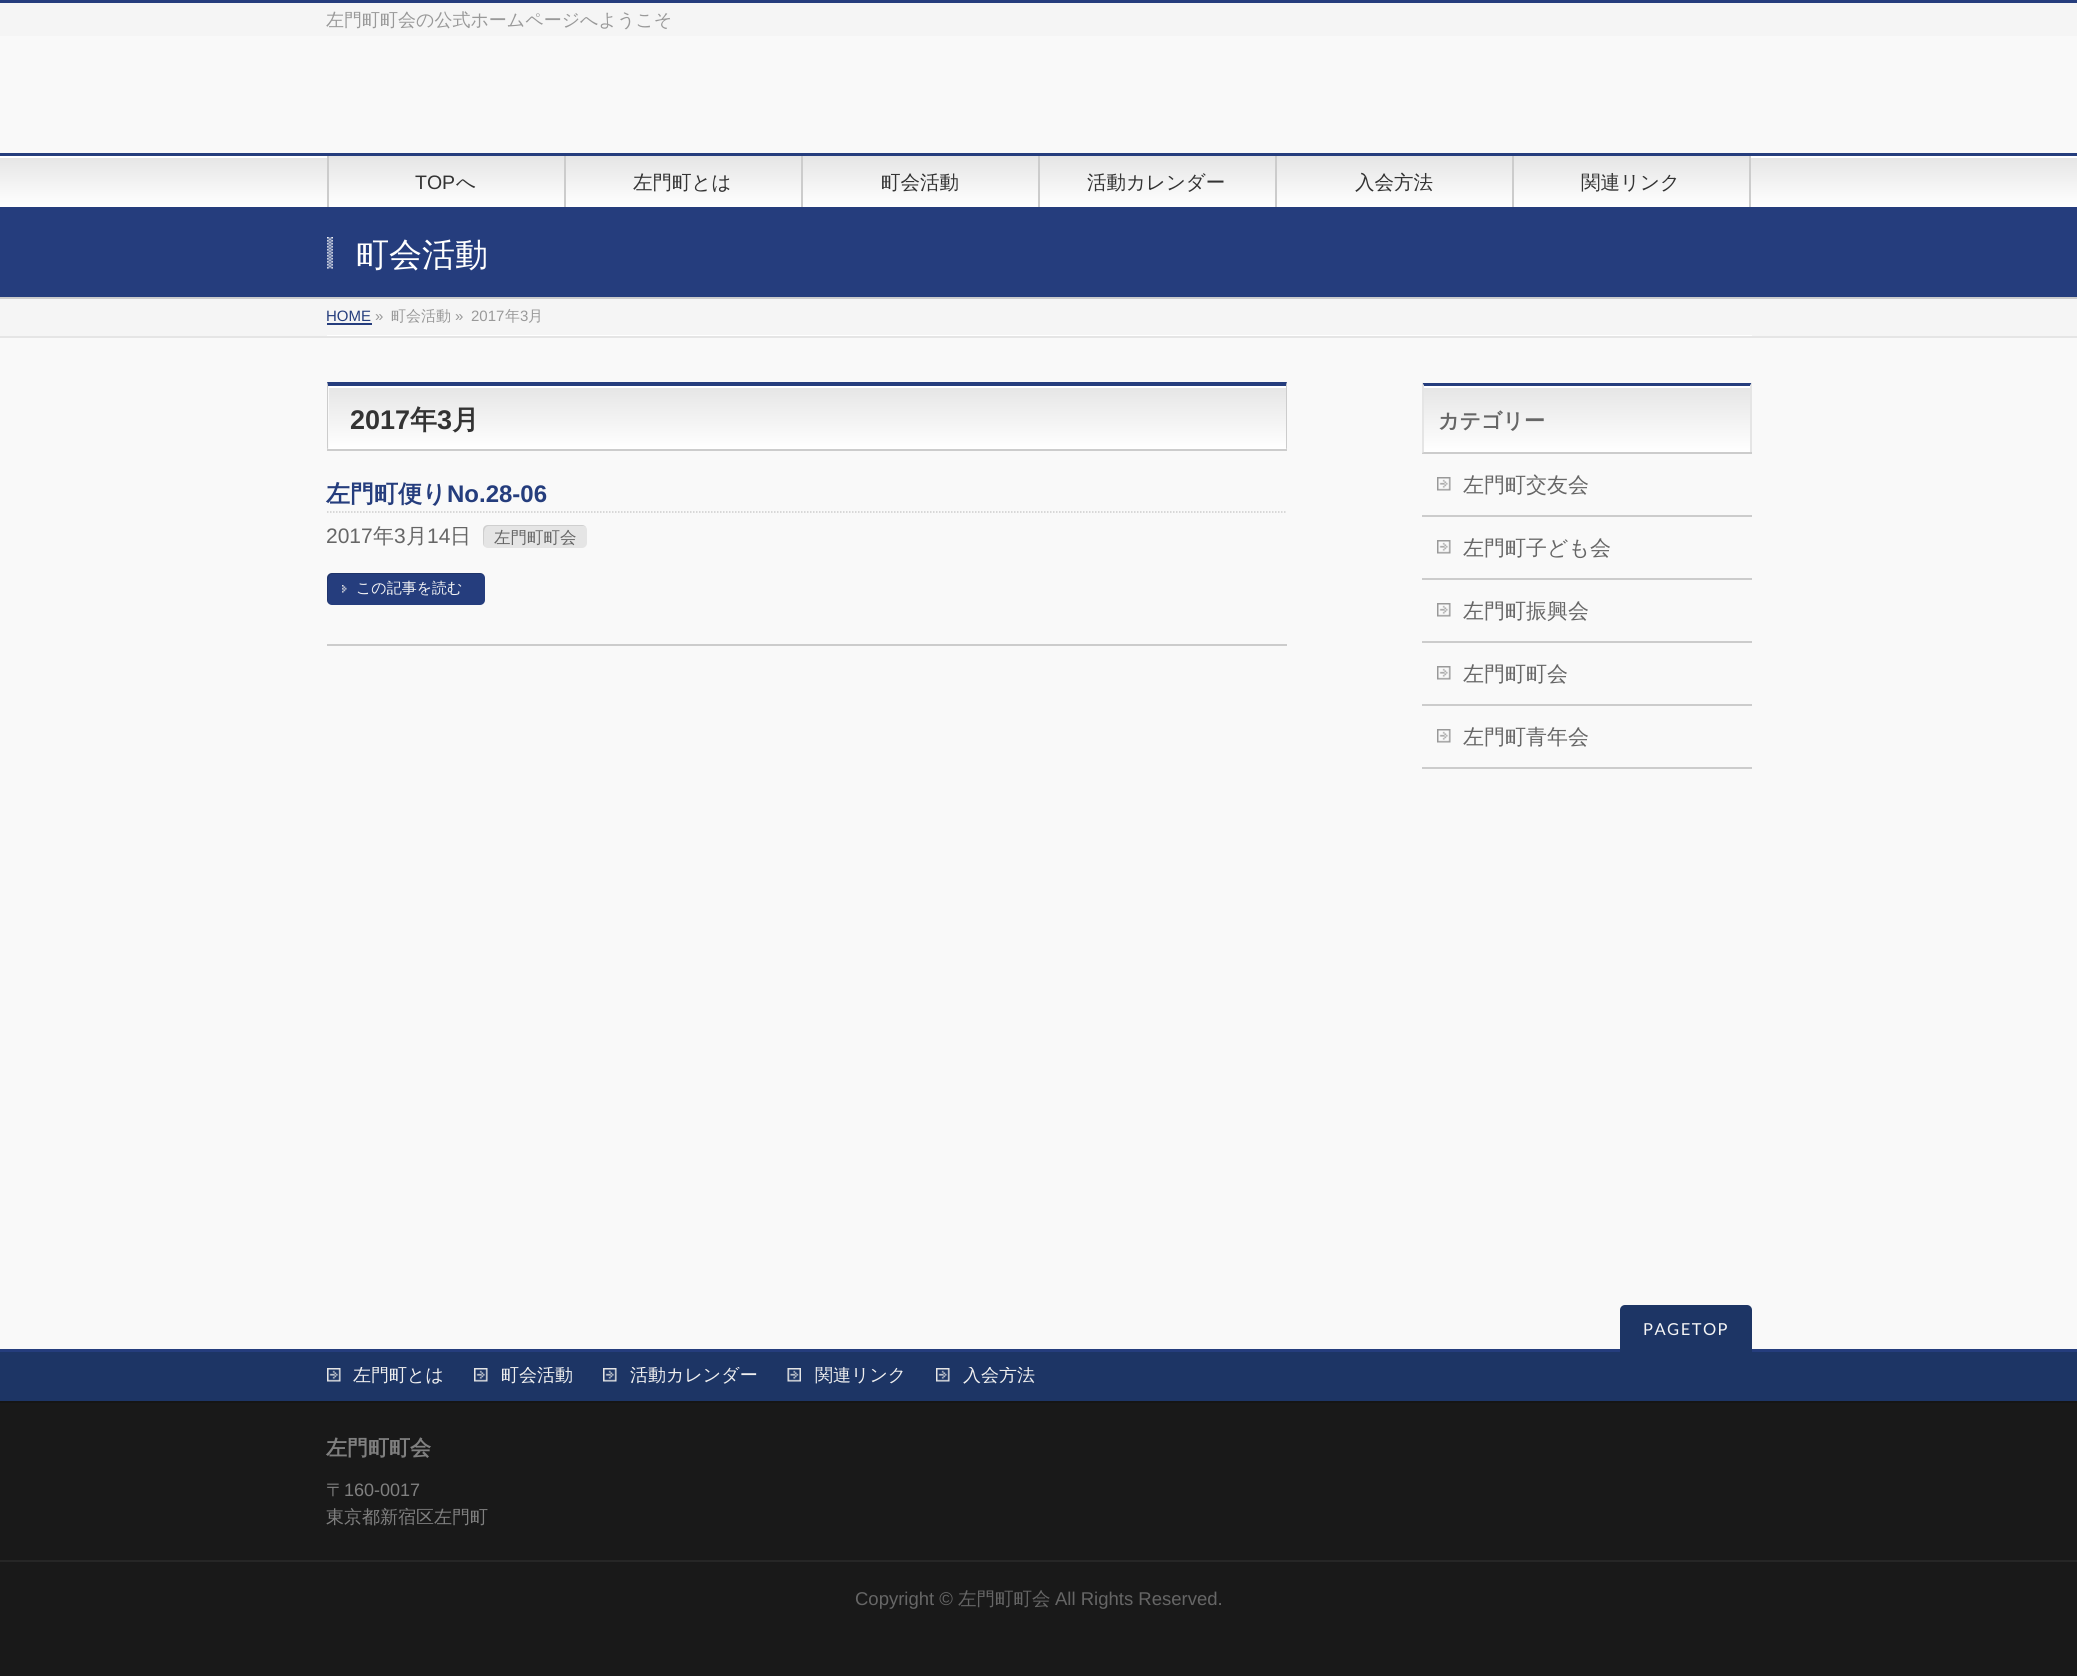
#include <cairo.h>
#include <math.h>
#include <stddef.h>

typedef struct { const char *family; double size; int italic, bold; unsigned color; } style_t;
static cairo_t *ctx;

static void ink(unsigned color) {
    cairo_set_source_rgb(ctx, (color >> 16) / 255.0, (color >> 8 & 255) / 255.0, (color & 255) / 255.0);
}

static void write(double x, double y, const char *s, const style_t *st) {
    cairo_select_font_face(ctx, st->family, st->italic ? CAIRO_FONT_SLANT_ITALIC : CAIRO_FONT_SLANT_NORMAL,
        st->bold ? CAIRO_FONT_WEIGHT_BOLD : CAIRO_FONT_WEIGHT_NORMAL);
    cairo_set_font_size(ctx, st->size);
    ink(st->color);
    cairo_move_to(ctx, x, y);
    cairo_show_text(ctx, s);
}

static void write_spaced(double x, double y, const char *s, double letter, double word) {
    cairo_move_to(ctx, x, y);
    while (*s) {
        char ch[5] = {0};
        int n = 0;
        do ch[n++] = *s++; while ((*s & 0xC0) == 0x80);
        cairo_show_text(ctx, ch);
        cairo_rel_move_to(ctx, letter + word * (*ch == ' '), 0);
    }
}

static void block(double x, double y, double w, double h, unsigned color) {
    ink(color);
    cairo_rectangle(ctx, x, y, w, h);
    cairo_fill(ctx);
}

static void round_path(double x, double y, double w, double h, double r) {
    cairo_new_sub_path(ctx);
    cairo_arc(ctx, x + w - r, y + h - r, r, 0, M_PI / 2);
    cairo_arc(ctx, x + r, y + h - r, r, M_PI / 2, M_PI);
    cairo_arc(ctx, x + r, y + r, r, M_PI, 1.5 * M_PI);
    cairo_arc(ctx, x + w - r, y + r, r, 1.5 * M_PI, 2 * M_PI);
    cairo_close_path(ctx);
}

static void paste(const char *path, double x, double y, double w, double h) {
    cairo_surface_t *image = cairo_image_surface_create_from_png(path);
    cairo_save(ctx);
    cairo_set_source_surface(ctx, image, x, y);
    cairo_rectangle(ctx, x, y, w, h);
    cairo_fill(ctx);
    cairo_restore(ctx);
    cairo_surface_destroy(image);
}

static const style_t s1 = {"WenQuanYi Zen Hei Medium", 18, 0, 0, 0x999999};
static const style_t s2 = {"Liberation Sans", 19.5, 0, 0, 0x333333};
static const style_t s3 = {"WenQuanYi Zen Hei Medium", 19.5, 0, 0, 0x333333};
static const style_t s4 = {"WenQuanYi Zen Hei Medium", 33, 0, 0, 0xffffff};
static const style_t s5 = {"Liberation Sans", 15, 0, 0, 0x253d7d};
static const style_t s6 = {"Liberation Sans", 15, 0, 0, 0x999999};
static const style_t s7 = {"WenQuanYi Zen Hei Medium", 15, 0, 0, 0x999999};
static const style_t s8 = {"Liberation Sans", 27, 0, 1, 0x333333};
static const style_t s9 = {"WenQuanYi Zen Hei", 27, 0, 1, 0x333333};
static const style_t s10 = {"WenQuanYi Zen Hei", 24, 0, 1, 0x253d7d};
static const style_t s11 = {"Liberation Sans", 24, 0, 1, 0x253d7d};
static const style_t s12 = {"Liberation Sans", 21, 0, 0, 0x666666};
static const style_t s13 = {"WenQuanYi Zen Hei Medium", 21, 0, 0, 0x666666};
static const style_t s14 = {"WenQuanYi Zen Hei Medium", 16.5, 0, 0, 0x666666};
static const style_t s15 = {"WenQuanYi Zen Hei Medium", 15, 0, 0, 0xf5f5f5};
static const style_t s16 = {"WenQuanYi Zen Hei", 21, 0, 1, 0x666666};
static const style_t s17 = {"WenQuanYi Zen Hei Medium", 18, 0, 0, 0xefefef};
static const style_t s18 = {"WenQuanYi Zen Hei", 21, 0, 1, 0x808080};
static const style_t s19 = {"WenQuanYi Zen Hei Medium", 18, 0, 0, 0x808080};
static const style_t s20 = {"Liberation Sans", 18, 0, 0, 0x808080};
static const style_t s21 = {"Liberation Sans", 18.5, 0, 0, 0x666666};
static const style_t s22 = {"WenQuanYi Zen Hei Medium", 18.5, 0, 0, 0x666666};

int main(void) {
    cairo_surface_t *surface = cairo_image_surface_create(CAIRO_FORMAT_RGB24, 2077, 1676);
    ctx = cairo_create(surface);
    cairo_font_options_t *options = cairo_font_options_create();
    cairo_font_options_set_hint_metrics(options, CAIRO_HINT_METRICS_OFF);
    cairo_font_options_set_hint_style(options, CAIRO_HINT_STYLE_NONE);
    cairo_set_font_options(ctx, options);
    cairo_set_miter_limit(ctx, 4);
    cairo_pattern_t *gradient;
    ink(0xf9f9f9);
    cairo_paint(ctx);
    block(0, 3, 2077, 33, 0xf5f5f5);
    block(0, 0, 2077, 3, 0x253d7d);
    write(326, 26, "左門町町会の公式ホームページへようこそ", &s1);
    gradient = cairo_pattern_create_linear(0, 156, 0, 207);
    cairo_pattern_add_color_stop_rgba(gradient, 0, 0.898, 0.898, 0.898, 1);
    cairo_pattern_add_color_stop_rgba(gradient, 1, 1, 1, 1, 1);
    cairo_set_source(ctx, gradient);
    cairo_pattern_destroy(gradient);
    cairo_rectangle(ctx, 0, 158, 2077, 49);
    cairo_fill(ctx);
    block(0, 156, 2077, 2, 0xffffff);
    block(0, 153, 2077, 3, 0x253d7d);
    block(327, 156, 2, 51, 0xcccccc);
    gradient = cairo_pattern_create_linear(329, 156, 329, 207);
    cairo_pattern_add_color_stop_rgba(gradient, 0, 0.898, 0.898, 0.898, 1);
    cairo_pattern_add_color_stop_rgba(gradient, 1, 1, 1, 1, 1);
    cairo_set_source(ctx, gradient);
    cairo_pattern_destroy(gradient);
    cairo_rectangle(ctx, 329, 156, 235, 2);
    cairo_fill(ctx);
    block(564, 156, 2, 51, 0xcccccc);
    write(415, 189, "TOP", &s2);
    write(456, 189, "へ", &s3);
    gradient = cairo_pattern_create_linear(566, 156, 566, 207);
    cairo_pattern_add_color_stop_rgba(gradient, 0, 0.898, 0.898, 0.898, 1);
    cairo_pattern_add_color_stop_rgba(gradient, 1, 1, 1, 1, 1);
    cairo_set_source(ctx, gradient);
    cairo_pattern_destroy(gradient);
    cairo_rectangle(ctx, 566, 156, 235, 2);
    cairo_fill(ctx);
    block(801, 156, 2, 51, 0xcccccc);
    write(633, 189, "左門町とは", &s3);
    gradient = cairo_pattern_create_linear(803, 156, 803, 207);
    cairo_pattern_add_color_stop_rgba(gradient, 0, 0.898, 0.898, 0.898, 1);
    cairo_pattern_add_color_stop_rgba(gradient, 1, 1, 1, 1, 1);
    cairo_set_source(ctx, gradient);
    cairo_pattern_destroy(gradient);
    cairo_rectangle(ctx, 803, 156, 235, 2);
    cairo_fill(ctx);
    block(1038, 156, 2, 51, 0xcccccc);
    write(881, 189, "町会活動", &s3);
    gradient = cairo_pattern_create_linear(1040, 156, 1040, 207);
    cairo_pattern_add_color_stop_rgba(gradient, 0, 0.898, 0.898, 0.898, 1);
    cairo_pattern_add_color_stop_rgba(gradient, 1, 1, 1, 1, 1);
    cairo_set_source(ctx, gradient);
    cairo_pattern_destroy(gradient);
    cairo_rectangle(ctx, 1040, 156, 235, 2);
    cairo_fill(ctx);
    block(1275, 156, 2, 51, 0xcccccc);
    write(1087, 189, "活動カレンダー", &s3);
    gradient = cairo_pattern_create_linear(1277, 156, 1277, 207);
    cairo_pattern_add_color_stop_rgba(gradient, 0, 0.898, 0.898, 0.898, 1);
    cairo_pattern_add_color_stop_rgba(gradient, 1, 1, 1, 1, 1);
    cairo_set_source(ctx, gradient);
    cairo_pattern_destroy(gradient);
    cairo_rectangle(ctx, 1277, 156, 235, 2);
    cairo_fill(ctx);
    block(1512, 156, 2, 51, 0xcccccc);
    write(1355, 189, "入会方法", &s3);
    gradient = cairo_pattern_create_linear(1514, 156, 1514, 207);
    cairo_pattern_add_color_stop_rgba(gradient, 0, 0.898, 0.898, 0.898, 1);
    cairo_pattern_add_color_stop_rgba(gradient, 1, 1, 1, 1, 1);
    cairo_set_source(ctx, gradient);
    cairo_pattern_destroy(gradient);
    cairo_rectangle(ctx, 1514, 156, 235, 2);
    cairo_fill(ctx);
    block(1749, 156, 2, 51, 0xcccccc);
    write(1581, 189, "関連リンク", &s3);
    block(0, 207, 2077, 90, 0x253d7d);
    block(0, 297, 2077, 2, 0xcccccc);
    paste("pic1.png", 327, 237, 6, 32);
    write(356, 266, "町会活動", &s4);
    block(0, 299, 2077, 37, 0xf5f5f5);
    block(0, 336, 2077, 2, 0xe5e5e5);
    block(327, 335, 1425, 1, 0xffffff);
    write(326, 321, "HOME", &s5);
    block(327, 323, 45, 2, 0x253d7d);
    write(375, 321, "»", &s6);
    write(391, 321, "町会活動", &s7);
    write(455, 321, "»", &s6);
    write(471, 321, "2017", &s6);
    write(505, 321, "年", &s7);
    write(520, 321, "3", &s6);
    write(528, 321, "月", &s7);
    gradient = cairo_pattern_create_linear(329, 386, 329, 449);
    cairo_pattern_add_color_stop_rgba(gradient, 0, 0.898, 0.898, 0.898, 1);
    cairo_pattern_add_color_stop_rgba(gradient, 1, 1, 1, 1, 1);
    cairo_set_source(ctx, gradient);
    cairo_pattern_destroy(gradient);
    cairo_rectangle(ctx, 329, 388, 957, 61);
    cairo_fill(ctx);
    block(329, 386, 957, 2, 0xffffff);
    ink(0x253d7d);
    cairo_new_path(ctx);
    cairo_move_to(ctx, 327, 382);
    cairo_line_to(ctx, 1287, 382);
    cairo_line_to(ctx, 1286, 386);
    cairo_line_to(ctx, 328, 386);
    cairo_close_path(ctx);
    cairo_fill(ctx);
    ink(0xcccccc);
    cairo_new_path(ctx);
    cairo_move_to(ctx, 1287, 382);
    cairo_line_to(ctx, 1287, 450);
    cairo_line_to(ctx, 1286, 448);
    cairo_line_to(ctx, 1286, 386);
    cairo_close_path(ctx);
    cairo_fill(ctx);
    block(327, 449, 960, 2, 0xcccccc);
    cairo_new_path(ctx);
    cairo_move_to(ctx, 327, 450);
    cairo_line_to(ctx, 327, 382);
    cairo_line_to(ctx, 328, 386);
    cairo_line_to(ctx, 328, 448);
    cairo_close_path(ctx);
    cairo_fill(ctx);
    write(350, 429, "2017", &s8);
    write(410, 429, "年", &s9);
    write(437, 429, "3", &s8);
    write(452, 429, "月", &s9);
    block(327, 644, 960, 2, 0xcccccc);
    cairo_new_path(ctx);
    cairo_move_to(ctx, 327, 512);
    cairo_line_to(ctx, 1287, 512);
    cairo_set_line_width(ctx, 1.5);
    cairo_set_dash(ctx, (double[]){1.5, 1.5}, 2, 0);
    cairo_stroke(ctx);
    write(326, 502, "左門町便り", &s10);
    write(447, 502, "No.28-06", &s11);
    write(326, 543, "2017", &s12);
    write(373, 543, "年", &s13);
    write(394, 543, "3", &s12);
    write(406, 543, "月", &s13);
    write(427, 543, "14", &s12);
    write(450, 543, "日", &s13);
    ink(0xe5e5e5);
    round_path(483, 525, 104, 23, 5);
    cairo_fill(ctx);
    cairo_set_source_rgba(ctx, 0, 0, 0, 0.1);
    cairo_new_path(ctx);
    cairo_move_to(ctx, 489, 526);
    cairo_line_to(ctx, 584, 526);
    cairo_line_to(ctx, 586, 527);
    cairo_curve_to(ctx, 585, 526, 584, 525, 582, 525);
    cairo_line_to(ctx, 488, 525);
    cairo_curve_to(ctx, 485, 525, 483, 527, 483, 530);
    cairo_line_to(ctx, 483, 543);
    cairo_curve_to(ctx, 483, 545, 484, 546, 485, 547);
    cairo_curve_to(ctx, 483, 545, 484, 541, 484, 538);
    cairo_curve_to(ctx, 484, 534, 483, 526, 489, 526);
    cairo_close_path(ctx);
    cairo_fill(ctx);
    write(494, 543, "左門町町会", &s14);
    ink(0x253d7d);
    round_path(327, 573, 158, 32, 5);
    cairo_fill(ctx);
    paste("pic2.png", 342, 585, 5, 8);
    cairo_set_source_rgba(ctx, 0, 0, 0, 0.15);
    cairo_new_path(ctx);
    cairo_move_to(ctx, 333, 574);
    cairo_line_to(ctx, 482, 574);
    cairo_line_to(ctx, 484, 575);
    cairo_curve_to(ctx, 483, 574, 482, 573, 480, 573);
    cairo_line_to(ctx, 332, 573);
    cairo_curve_to(ctx, 329, 573, 327, 575, 327, 578);
    cairo_line_to(ctx, 327, 600);
    cairo_curve_to(ctx, 327, 602, 328, 603, 329, 604);
    cairo_curve_to(ctx, 327, 601, 328, 593, 328, 590);
    cairo_curve_to(ctx, 328, 587, 326, 574, 333, 574);
    cairo_close_path(ctx);
    cairo_fill(ctx);
    write(356, 593, "この記事を読む", &s15);
    gradient = cairo_pattern_create_linear(1424, 386, 1424, 452);
    cairo_pattern_add_color_stop_rgba(gradient, 0, 0.898, 0.898, 0.898, 1);
    cairo_pattern_add_color_stop_rgba(gradient, 1, 1, 1, 1, 1);
    cairo_set_source(ctx, gradient);
    cairo_pattern_destroy(gradient);
    cairo_rectangle(ctx, 1424, 388, 326, 64);
    cairo_fill(ctx);
    block(1424, 386, 327, 2, 0xffffff);
    cairo_save(ctx);
    cairo_rectangle(ctx, 1422, 383, 330, 460);
    cairo_clip(ctx);
    ink(0x253d7d);
    cairo_new_path(ctx);
    cairo_move_to(ctx, 1422, 382);
    cairo_line_to(ctx, 1752, 382);
    cairo_line_to(ctx, 1750, 386);
    cairo_line_to(ctx, 1424, 386);
    cairo_close_path(ctx);
    cairo_fill(ctx);
    cairo_restore(ctx);
    ink(0xe5e5e5);
    cairo_new_path(ctx);
    cairo_move_to(ctx, 1752, 382);
    cairo_line_to(ctx, 1752, 453);
    cairo_line_to(ctx, 1750, 452);
    cairo_line_to(ctx, 1750, 386);
    cairo_close_path(ctx);
    cairo_fill(ctx);
    block(1422, 452, 330, 2, 0xcccccc);
    ink(0xe5e5e5);
    cairo_new_path(ctx);
    cairo_move_to(ctx, 1422, 453);
    cairo_line_to(ctx, 1422, 382);
    cairo_line_to(ctx, 1424, 386);
    cairo_line_to(ctx, 1424, 452);
    cairo_close_path(ctx);
    cairo_fill(ctx);
    write(1438, 428, "カテゴリー", &s16);
    block(1422, 515, 330, 2, 0xcccccc);
    paste("pic3.png", 1437, 477, 14, 14);
    write(1463, 492, "左門町交友会", &s13);
    block(1422, 578, 330, 2, 0xcccccc);
    paste("pic3.png", 1437, 540, 14, 14);
    write(1463, 555, "左門町子ども会", &s13);
    block(1422, 641, 330, 2, 0xcccccc);
    paste("pic3.png", 1437, 603, 14, 14);
    write(1463, 618, "左門町振興会", &s13);
    block(1422, 704, 330, 2, 0xcccccc);
    paste("pic3.png", 1437, 666, 14, 14);
    write(1463, 681, "左門町町会", &s13);
    block(1422, 767, 330, 2, 0xcccccc);
    paste("pic3.png", 1437, 729, 14, 14);
    write(1463, 744, "左門町青年会", &s13);
    block(0, 1352, 2077, 49, 0x1d3565);
    block(0, 1349, 2077, 3, 0x253d7d);
    ink(0x1d3565);
    round_path(1620, 1305, 132, 59, 5);
    cairo_fill(ctx);
    cairo_select_font_face(ctx, "Lato", CAIRO_FONT_SLANT_NORMAL, CAIRO_FONT_WEIGHT_NORMAL);
    cairo_set_font_size(ctx, 16.5);
    ink(0xf5f5f5);
    write_spaced(1643, 1335, "PAGETOP", 1.5, 0);
    paste("pic4.png", 327, 1368, 14, 14);
    cairo_save(ctx);
    cairo_rectangle(ctx, 327, 1367, 1425, 19);
    cairo_clip(ctx);
    write(353, 1381, "左門町とは", &s17);
    cairo_restore(ctx);
    paste("pic4.png", 474, 1368, 14, 14);
    cairo_save(ctx);
    cairo_rectangle(ctx, 327, 1367, 1425, 19);
    cairo_clip(ctx);
    write(501, 1381, "町会活動", &s17);
    cairo_restore(ctx);
    paste("pic4.png", 603, 1368, 14, 14);
    cairo_save(ctx);
    cairo_rectangle(ctx, 327, 1367, 1425, 19);
    cairo_clip(ctx);
    write(630, 1381, "活動カレンダー", &s17);
    cairo_restore(ctx);
    paste("pic5.png", 787, 1368, 14, 14);
    cairo_save(ctx);
    cairo_rectangle(ctx, 327, 1367, 1425, 19);
    cairo_clip(ctx);
    write(815, 1381, "関連リンク", &s17);
    cairo_restore(ctx);
    paste("pic6.png", 936, 1368, 14, 14);
    cairo_save(ctx);
    cairo_rectangle(ctx, 327, 1367, 1425, 19);
    cairo_clip(ctx);
    write(963, 1381, "入会方法", &s17);
    cairo_restore(ctx);
    block(0, 1403, 2077, 157, 0x191919);
    block(0, 1401, 2077, 2, 0x151515);
    write(326, 1455, "左門町町会", &s18);
    write(326, 1496, "〒", &s19);
    write(344, 1496, "160-0017", &s20);
    write(326, 1523, "東京都新宿区左門町", &s19);
    block(0, 1562, 2077, 114, 0x191919);
    block(0, 1560, 2077, 2, 0x262626);
    write(855, 1605, "Copyright ©", &s21);
    write(958, 1605, "左門町町会", &s22);
    write(1055, 1605, "All Rights Reserved.", &s21);
    cairo_surface_write_to_png(surface, "screenshot.png");
    cairo_font_options_destroy(options);
    cairo_destroy(ctx);
    cairo_surface_destroy(surface);
    return 0;
}
